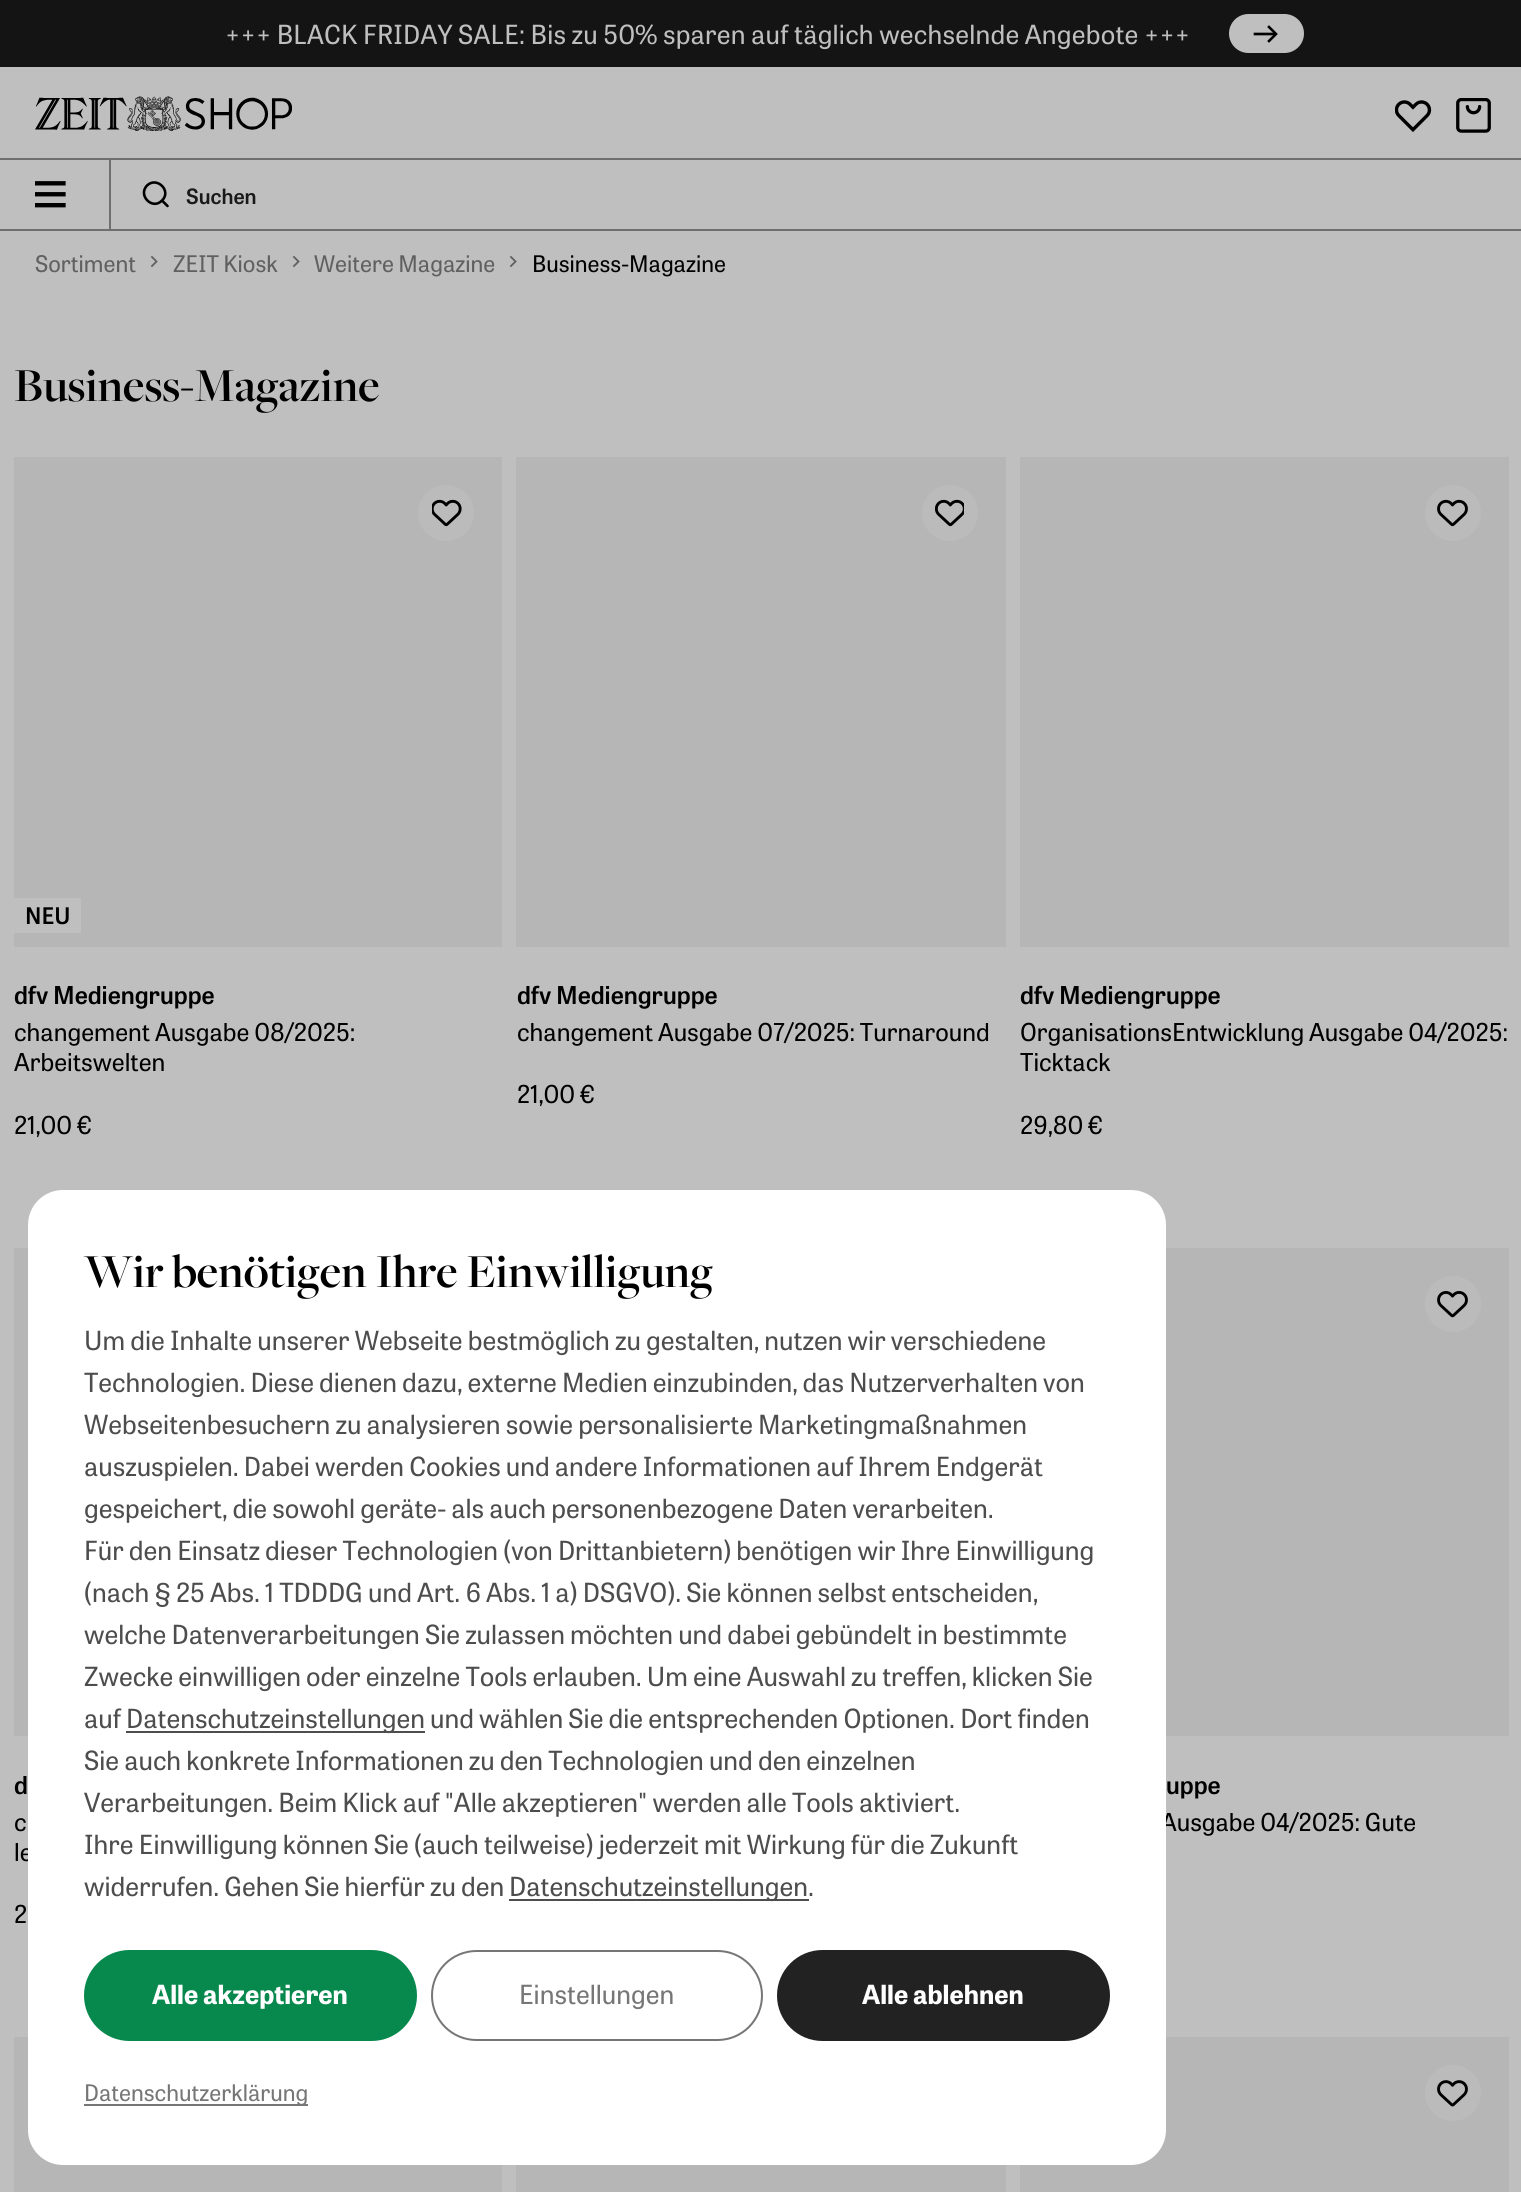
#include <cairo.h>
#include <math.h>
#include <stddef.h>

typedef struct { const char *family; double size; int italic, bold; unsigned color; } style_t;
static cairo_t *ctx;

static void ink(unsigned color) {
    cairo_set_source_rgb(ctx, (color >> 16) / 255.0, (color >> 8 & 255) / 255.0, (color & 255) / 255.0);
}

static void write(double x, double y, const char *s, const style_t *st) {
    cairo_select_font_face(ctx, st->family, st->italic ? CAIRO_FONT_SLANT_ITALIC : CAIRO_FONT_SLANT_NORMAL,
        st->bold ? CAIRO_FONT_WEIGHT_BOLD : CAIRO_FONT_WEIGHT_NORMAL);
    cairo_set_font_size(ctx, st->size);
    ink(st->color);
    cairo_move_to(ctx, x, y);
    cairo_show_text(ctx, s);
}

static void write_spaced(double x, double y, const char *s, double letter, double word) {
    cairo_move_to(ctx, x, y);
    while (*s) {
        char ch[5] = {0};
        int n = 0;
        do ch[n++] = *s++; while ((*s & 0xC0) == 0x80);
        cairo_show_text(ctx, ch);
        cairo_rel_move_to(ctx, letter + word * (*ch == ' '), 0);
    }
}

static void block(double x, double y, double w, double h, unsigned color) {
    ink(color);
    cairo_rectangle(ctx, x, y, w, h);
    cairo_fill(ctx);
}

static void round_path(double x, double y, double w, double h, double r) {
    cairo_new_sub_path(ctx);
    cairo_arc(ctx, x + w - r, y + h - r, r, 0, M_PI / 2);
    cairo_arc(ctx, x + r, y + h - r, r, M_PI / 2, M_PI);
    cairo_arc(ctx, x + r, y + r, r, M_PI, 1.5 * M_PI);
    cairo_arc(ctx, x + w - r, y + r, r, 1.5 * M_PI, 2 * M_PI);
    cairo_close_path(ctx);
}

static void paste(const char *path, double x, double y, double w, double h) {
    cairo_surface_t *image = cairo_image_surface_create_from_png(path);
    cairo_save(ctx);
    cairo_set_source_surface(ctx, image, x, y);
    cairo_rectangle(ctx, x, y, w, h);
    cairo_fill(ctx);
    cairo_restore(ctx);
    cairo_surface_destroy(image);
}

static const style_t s1 = {"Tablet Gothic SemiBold", 21, 0, 0, 0x1a1a1a};
static const style_t s2 = {"Tablet Gothic", 22.75, 0, 0, 0x606060};
static const style_t s3 = {"Tablet Gothic", 22.75, 0, 0, 0x000000};
static const style_t s4 = {"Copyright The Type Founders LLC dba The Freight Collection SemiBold", 49, 0, 0, 0x000000};
static const style_t s5 = {"Tablet Gothic SemiBold", 22.75, 0, 0, 0x000000};
static const style_t s6 = {"Tablet Gothic SemiBold", 24.5, 0, 0, 0x000000};
static const style_t s7 = {"Tablet Gothic", 24.5, 0, 0, 0x000000};
static const style_t s8 = {"Tablet Gothic", 26.25, 0, 0, 0x4d4d4d};
static const style_t s9 = {"Tablet Gothic", 26.25, 0, 1, 0xffffff};
static const style_t s10 = {"Tablet Gothic", 26.25, 0, 0, 0x767676};
static const style_t s11 = {"Tablet Gothic", 22.75, 0, 0, 0x767676};

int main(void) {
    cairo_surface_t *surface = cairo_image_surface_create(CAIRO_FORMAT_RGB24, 1521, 2192);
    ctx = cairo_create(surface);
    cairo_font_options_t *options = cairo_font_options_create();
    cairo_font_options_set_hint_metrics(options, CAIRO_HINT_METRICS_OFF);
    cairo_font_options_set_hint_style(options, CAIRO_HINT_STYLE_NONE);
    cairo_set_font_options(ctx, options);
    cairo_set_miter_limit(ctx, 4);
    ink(0xbfbfbf);
    cairo_paint(ctx);
    block(0, 0, 1521, 67, 0x141414);
    cairo_select_font_face(ctx, "Tablet Gothic", CAIRO_FONT_SLANT_NORMAL, CAIRO_FONT_WEIGHT_NORMAL);
    cairo_set_font_size(ctx, 26.25);
    ink(0xbfbfbf);
    write_spaced(225, 44, "+++ BLACK FRIDAY SALE: Bis zu 50% sparen auf täglich wechselnde Angebote +++", 0.22, 0);
    round_path(1229, 14, 75, 39, 19.5);
    cairo_fill(ctx);
    cairo_new_path(ctx);
    cairo_move_to(ctx, 1255, 34);
    cairo_line_to(ctx, 1273.5, 34);
    ink(0x000000);
    cairo_set_line_width(ctx, 2.6);
    cairo_set_line_cap(ctx, CAIRO_LINE_CAP_SQUARE);
    cairo_set_line_join(ctx, CAIRO_LINE_JOIN_ROUND);
    cairo_stroke(ctx);
    cairo_new_path(ctx);
    cairo_move_to(ctx, 1269, 41);
    cairo_line_to(ctx, 1276, 34);
    cairo_line_to(ctx, 1269, 27);
    cairo_set_line_join(ctx, CAIRO_LINE_JOIN_MITER);
    cairo_stroke(ctx);
    paste("pic1.png", 35, 96, 257, 35);
    paste("pic2.png", 1395, 100, 37, 32);
    paste("pic3.png", 1456, 98, 35, 35);
    block(0, 158, 1521, 2, 0x6f6f6f);
    block(0, 229, 1521, 2, 0x6f6f6f);
    paste("pic4.png", 35, 181, 31, 27);
    block(109, 159, 2, 70, 0x6f6f6f);
    cairo_new_path(ctx);
    cairo_move_to(ctx, 167.5, 206);
    cairo_line_to(ctx, 162, 200.5);
    cairo_move_to(ctx, 162, 200.5);
    cairo_curve_to(ctx, 152.5, 210.5, 137.5, 195.5, 147, 185.5);
    cairo_curve_to(ctx, 157, 176, 172, 191, 162, 200.5);
    cairo_close_path(ctx);
    ink(0x000000);
    cairo_set_line_cap(ctx, CAIRO_LINE_CAP_ROUND);
    cairo_set_line_join(ctx, CAIRO_LINE_JOIN_ROUND);
    cairo_stroke(ctx);
    write(186, 204, "Suchen", &s1);
    write(35, 272, "Sortiment", &s2);
    cairo_new_path(ctx);
    cairo_move_to(ctx, 152, 266);
    cairo_line_to(ctx, 156.5, 261.5);
    cairo_line_to(ctx, 152, 257);
    cairo_set_line_width(ctx, 1.8);
    cairo_set_line_cap(ctx, CAIRO_LINE_CAP_SQUARE);
    cairo_set_line_join(ctx, CAIRO_LINE_JOIN_MITER);
    cairo_stroke(ctx);
    write(173, 272, "ZEIT Kiosk", &s2);
    cairo_new_path(ctx);
    cairo_move_to(ctx, 294, 266);
    cairo_line_to(ctx, 298.5, 261.5);
    cairo_line_to(ctx, 294, 257);
    cairo_stroke(ctx);
    write(314, 272, "Weitere Magazine", &s2);
    cairo_new_path(ctx);
    cairo_move_to(ctx, 511, 266);
    cairo_line_to(ctx, 515.5, 261.5);
    cairo_line_to(ctx, 511, 257);
    cairo_stroke(ctx);
    write(532, 272, "Business-Magazine", &s3);
    write(14, 401, "Business-Magazine", &s4);
    block(14, 457, 488, 490, 0xb6b6b6);
    ink(0xbbbbbb);
    cairo_new_path(ctx);
    cairo_arc(ctx, 446, 513, 28, 0, 2 * M_PI);
    cairo_fill(ctx);
    paste("pic5.png", 432, 499, 30, 28);
    block(14, 898, 67, 35, 0xbfbfbf);
    write(25, 924, "NEU", &s5);
    write(14, 1004, "dfv Mediengruppe", &s6);
    write(14, 1041, "changement Ausgabe 08/2025:", &s7);
    write(14, 1071, "Arbeitswelten", &s7);
    write(14, 1134, "21,00 €", &s7);
    block(516, 457, 490, 490, 0xb6b6b6);
    ink(0xbbbbbb);
    cairo_new_path(ctx);
    cairo_arc(ctx, 950, 513, 28, 0, 2 * M_PI);
    cairo_fill(ctx);
    paste("pic6.png", 935, 499, 29, 28);
    write(517, 1004, "dfv Mediengruppe", &s6);
    write(517, 1041, "changement Ausgabe 07/2025: Turnaround", &s7);
    write(517, 1103, "21,00 €", &s7);
    block(1020, 457, 489, 490, 0xb6b6b6);
    ink(0xbbbbbb);
    cairo_new_path(ctx);
    cairo_arc(ctx, 1453, 513, 28, 0, 2 * M_PI);
    cairo_fill(ctx);
    paste("pic7.png", 1437, 499, 31, 28);
    write(1020, 1004, "dfv Mediengruppe", &s6);
    write(1020, 1041, "OrganisationsEntwicklung Ausgabe 04/2025:", &s7);
    write(1020, 1071, "Ticktack", &s7);
    write(1020, 1134, "29,80 €", &s7);
    block(14, 1248, 14, 488, 0xb6b6b6);
    write(14, 1794, "d", &s6);
    write(14, 1831, "c", &s7);
    write(14, 1861, "le", &s7);
    write(14, 1923, "2", &s7);
    block(1166, 1248, 343, 488, 0xb6b6b6);
    ink(0xbbbbbb);
    cairo_new_path(ctx);
    cairo_arc(ctx, 1453, 1304, 28, 0, 2 * M_PI);
    cairo_fill(ctx);
    paste("pic8.png", 1437, 1291, 31, 27);
    write(1166, 1794, "uppe", &s6);
    write(1161, 1831, "Ausgabe 04/2025: Gute", &s7);
    block(14, 2037, 488, 155, 0xb6b6b6);
    block(516, 2165, 490, 27, 0xb6b6b6);
    block(1020, 2037, 489, 155, 0xb6b6b6);
    ink(0xbbbbbb);
    cairo_new_path(ctx);
    cairo_arc(ctx, 1453, 2093, 28, 0, 2 * M_PI);
    cairo_fill(ctx);
    paste("pic9.png", 1437, 2080, 31, 27);
    ink(0xffffff);
    round_path(28, 1190, 1138, 975, 35);
    cairo_fill(ctx);
    write(84, 1287, "Wir benötigen Ihre Einwilligung", &s4);
    write(84, 1350, "Um die Inhalte unserer Webseite bestmöglich zu gestalten, nutzen wir verschiedene", &s8);
    write(84, 1392, "Technologien. Diese dienen dazu, externe Medien einzubinden, das Nutzerverhalten von", &s8);
    write(84, 1434, "Webseitenbesuchern zu analysieren sowie personalisierte Marketingmaßnahmen", &s8);
    write(84, 1476, "auszuspielen. Dabei werden Cookies und andere Informationen auf Ihrem Endgerät", &s8);
    write(84, 1518, "gespeichert, die sowohl geräte- als auch personenbezogene Daten verarbeiten.", &s8);
    write(84, 1560, "Für den Einsatz dieser Technologien (von Drittanbietern) benötigen wir Ihre Einwilligung", &s8);
    write(84, 1602, "(nach § 25 Abs. 1 TDDDG und Art. 6 Abs. 1 a) DSGVO). Sie können selbst entscheiden,", &s8);
    write(84, 1644, "welche Datenverarbeitungen Sie zulassen möchten und dabei gebündelt in bestimmte", &s8);
    write(84, 1686, "Zwecke einwilligen oder einzelne Tools erlauben. Um eine Auswahl zu treffen, klicken Sie", &s8);
    write(84, 1728, "auf", &s8);
    block(126, 1731, 299, 2, 0x4d4d4d);
    write(126, 1728, "Datenschutzeinstellungen", &s8);
    write(430, 1728, "und wählen Sie die entsprechenden Optionen. Dort finden", &s8);
    write(84, 1770, "Sie auch konkrete Informationen zu den Technologien und den einzelnen", &s8);
    write(84, 1812, "Verarbeitungen. Beim Klick auf \"Alle akzeptieren\" werden alle Tools aktiviert.", &s8);
    write(84, 1854, "Ihre Einwilligung können Sie (auch teilweise) jederzeit mit Wirkung für die Zukunft", &s8);
    write(84, 1896, "widerrufen. Gehen Sie hierfür zu den", &s8);
    block(509, 1899, 300, 2, 0x4d4d4d);
    write(509, 1896, "Datenschutzeinstellungen", &s8);
    write(808, 1896, ".", &s8);
    ink(0x07884d);
    round_path(85, 1951, 331, 89, 44.5);
    cairo_fill_preserve(ctx);
    cairo_set_line_width(ctx, 2);
    cairo_set_line_cap(ctx, CAIRO_LINE_CAP_BUTT);
    cairo_stroke(ctx);
    write(152, 2004, "Alle akzeptieren", &s9);
    round_path(432, 1951, 330, 89, 44.5);
    ink(0x767676);
    cairo_stroke(ctx);
    write(519, 2004, "Einstellungen", &s10);
    ink(0x222222);
    round_path(778, 1951, 331, 89, 44.5);
    cairo_fill_preserve(ctx);
    cairo_stroke(ctx);
    write(862, 2004, "Alle ablehnen", &s9);
    block(84, 2104, 224, 2, 0x767676);
    write(84, 2101, "Datenschutzerklärung", &s11);
    cairo_surface_write_to_png(surface, "screenshot.png");
    cairo_font_options_destroy(options);
    cairo_destroy(ctx);
    cairo_surface_destroy(surface);
    return 0;
}
